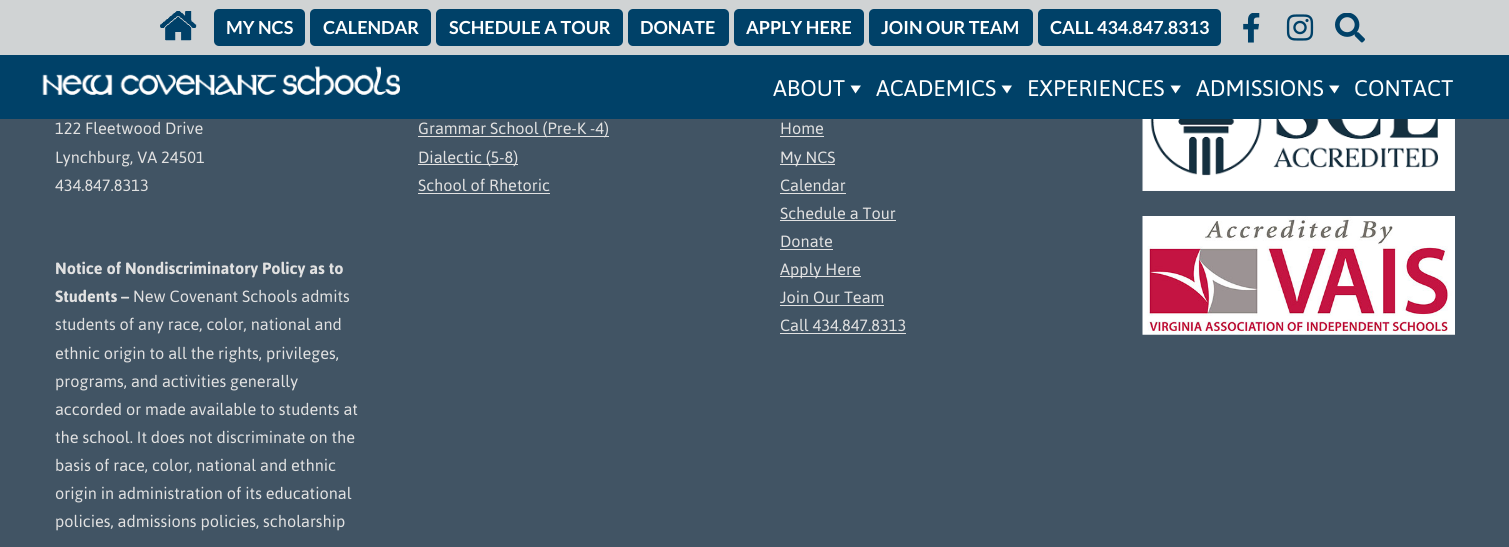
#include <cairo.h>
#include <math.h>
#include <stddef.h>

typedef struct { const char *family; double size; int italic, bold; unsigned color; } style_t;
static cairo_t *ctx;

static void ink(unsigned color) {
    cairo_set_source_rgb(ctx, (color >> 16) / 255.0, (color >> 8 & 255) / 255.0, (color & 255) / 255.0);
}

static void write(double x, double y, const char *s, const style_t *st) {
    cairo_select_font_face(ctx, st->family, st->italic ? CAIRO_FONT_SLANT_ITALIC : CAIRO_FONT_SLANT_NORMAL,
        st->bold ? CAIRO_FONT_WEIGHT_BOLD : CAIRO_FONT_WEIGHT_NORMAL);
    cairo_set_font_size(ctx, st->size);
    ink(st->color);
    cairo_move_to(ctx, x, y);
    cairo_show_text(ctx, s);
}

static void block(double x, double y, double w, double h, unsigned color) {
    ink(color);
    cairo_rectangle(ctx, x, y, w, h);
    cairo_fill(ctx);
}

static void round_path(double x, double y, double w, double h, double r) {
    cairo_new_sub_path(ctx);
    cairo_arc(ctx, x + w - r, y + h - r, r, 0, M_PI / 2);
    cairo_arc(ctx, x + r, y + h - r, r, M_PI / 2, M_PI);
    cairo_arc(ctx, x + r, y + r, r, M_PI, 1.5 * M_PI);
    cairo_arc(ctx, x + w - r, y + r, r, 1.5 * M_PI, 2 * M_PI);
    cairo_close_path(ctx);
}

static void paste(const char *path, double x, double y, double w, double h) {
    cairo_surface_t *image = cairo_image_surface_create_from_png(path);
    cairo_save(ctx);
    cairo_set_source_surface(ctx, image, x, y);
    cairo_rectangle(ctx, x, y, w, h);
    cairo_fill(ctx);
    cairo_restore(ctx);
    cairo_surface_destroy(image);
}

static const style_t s1 = {"Lato", 18, 0, 1, 0xffffff};
static const style_t s2 = {"Jaldi", 26, 0, 0, 0xffffff};
static const style_t s3 = {"Jaldi", 18.75, 0, 0, 0xe1e1e1};
static const style_t s4 = {"Jaldi", 18.75, 0, 1, 0xe1e1e1};

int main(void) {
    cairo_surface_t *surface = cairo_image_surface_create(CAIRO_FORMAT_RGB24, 1509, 547);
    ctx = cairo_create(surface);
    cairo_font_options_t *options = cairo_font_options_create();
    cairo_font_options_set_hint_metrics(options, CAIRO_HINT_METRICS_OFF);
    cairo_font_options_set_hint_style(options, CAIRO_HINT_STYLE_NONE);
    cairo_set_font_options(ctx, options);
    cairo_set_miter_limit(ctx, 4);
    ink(0x415464);
    cairo_paint(ctx);
    block(0, 0, 1509, 55, 0xd0d3d4);
    paste("pic1.png", 160, 11, 37, 30);
    ink(0x004168);
    round_path(214, 9, 91, 37, 5);
    cairo_fill(ctx);
    write(226, 34, "MY NCS", &s1);
    ink(0x004168);
    round_path(310, 9, 121, 37, 5);
    cairo_fill(ctx);
    write(323, 34, "CALENDAR", &s1);
    ink(0x004168);
    round_path(436, 9, 187, 37, 5);
    cairo_fill(ctx);
    write(449, 34, "SCHEDULE A TOUR", &s1);
    ink(0x004168);
    round_path(628, 9, 101, 37, 5);
    cairo_fill(ctx);
    write(640, 34, "DONATE", &s1);
    ink(0x004168);
    round_path(734, 9, 130, 37, 5);
    cairo_fill(ctx);
    write(746, 34, "APPLY HERE", &s1);
    ink(0x004168);
    round_path(869, 9, 164, 37, 5);
    cairo_fill(ctx);
    write(881, 34, "JOIN OUR TEAM", &s1);
    ink(0x004168);
    round_path(1038, 9, 183, 37, 5);
    cairo_fill(ctx);
    write(1050, 34, "CALL 434.847.8313", &s1);
    paste("pic2.png", 1243, 13, 17, 30);
    paste("pic3.png", 1286, 14, 28, 27);
    paste("pic4.png", 1335, 13, 30, 30);
    block(0, 55, 1509, 64, 0x004168);
    paste("pic5.png", 42, 66, 358, 29);
    write(773, 96, "ABOUT", &s2);
    cairo_new_path(ctx);
    cairo_move_to(ctx, 861, 85.5);
    cairo_line_to(ctx, 855.5, 93.5);
    cairo_line_to(ctx, 850.5, 85.5);
    cairo_close_path(ctx);
    cairo_fill(ctx);
    write(876, 96, "ACADEMICS", &s2);
    cairo_new_path(ctx);
    cairo_move_to(ctx, 1012, 85.5);
    cairo_line_to(ctx, 1007, 93.5);
    cairo_line_to(ctx, 1001.5, 85.5);
    cairo_close_path(ctx);
    cairo_fill(ctx);
    write(1027, 96, "EXPERIENCES", &s2);
    cairo_new_path(ctx);
    cairo_move_to(ctx, 1181, 85.5);
    cairo_line_to(ctx, 1175.5, 93.5);
    cairo_line_to(ctx, 1170.5, 85.5);
    cairo_close_path(ctx);
    cairo_fill(ctx);
    write(1196, 96, "ADMISSIONS", &s2);
    cairo_new_path(ctx);
    cairo_move_to(ctx, 1339.5, 85.5);
    cairo_line_to(ctx, 1334.5, 93.5);
    cairo_line_to(ctx, 1329, 85.5);
    cairo_close_path(ctx);
    cairo_fill(ctx);
    write(1354, 96, "CONTACT", &s2);
    write(55, 134, "122 Fleetwood Drive", &s3);
    write(55, 163, "Lynchburg, VA 24501", &s3);
    write(55, 191, "434.847.8313", &s3);
    write(55, 274, "Notice of Nondiscriminatory Policy as to", &s4);
    write(55, 302, "Students –", &s4);
    write(133, 302, "New Covenant Schools admits", &s3);
    write(55, 330, "students of any race, color, national and", &s3);
    write(55, 359, "ethnic origin to all the rights, privileges,", &s3);
    write(55, 387, "programs, and activities generally", &s3);
    write(55, 415, "accorded or made available to students at", &s3);
    write(55, 443, "the school. It does not discriminate on the", &s3);
    write(55, 471, "basis of race, color, national and ethnic", &s3);
    write(55, 499, "origin in administration of its educational", &s3);
    write(55, 527, "policies, admissions policies, scholarship", &s3);
    block(418, 136, 191, 1, 0xe1e1e1);
    write(418, 134, "Grammar School (Pre-K -4)", &s3);
    block(418, 164, 100, 1, 0xe1e1e1);
    write(418, 163, "Dialectic (5-8)", &s3);
    write(418, 191, "School of Rhetoric", &s3);
    block(418, 193, 132, 1, 0xe1e1e1);
    write(780, 134, "Home", &s3);
    block(780, 136, 44, 1, 0xe1e1e1);
    block(780, 164, 55, 1, 0xe1e1e1);
    write(780, 163, "My NCS", &s3);
    write(780, 191, "Calendar", &s3);
    block(780, 193, 66, 1, 0xe1e1e1);
    write(780, 219, "Schedule a Tour", &s3);
    block(780, 220, 116, 1, 0xe1e1e1);
    write(780, 247, "Donate", &s3);
    block(780, 249, 53, 1, 0xe1e1e1);
    block(780, 276, 81, 1, 0xe1e1e1);
    write(780, 275, "Apply Here", &s3);
    write(780, 303, "Join Our Team", &s3);
    block(780, 305, 104, 1, 0xe1e1e1);
    write(780, 331, "Call 434.847.8313", &s3);
    block(780, 333, 126, 1, 0xe1e1e1);
    paste("pic6.png", 1142, 119, 313, 72);
    paste("pic7.png", 1142, 216, 313, 119);
    cairo_surface_write_to_png(surface, "screenshot.png");
    cairo_font_options_destroy(options);
    cairo_destroy(ctx);
    cairo_surface_destroy(surface);
    return 0;
}
